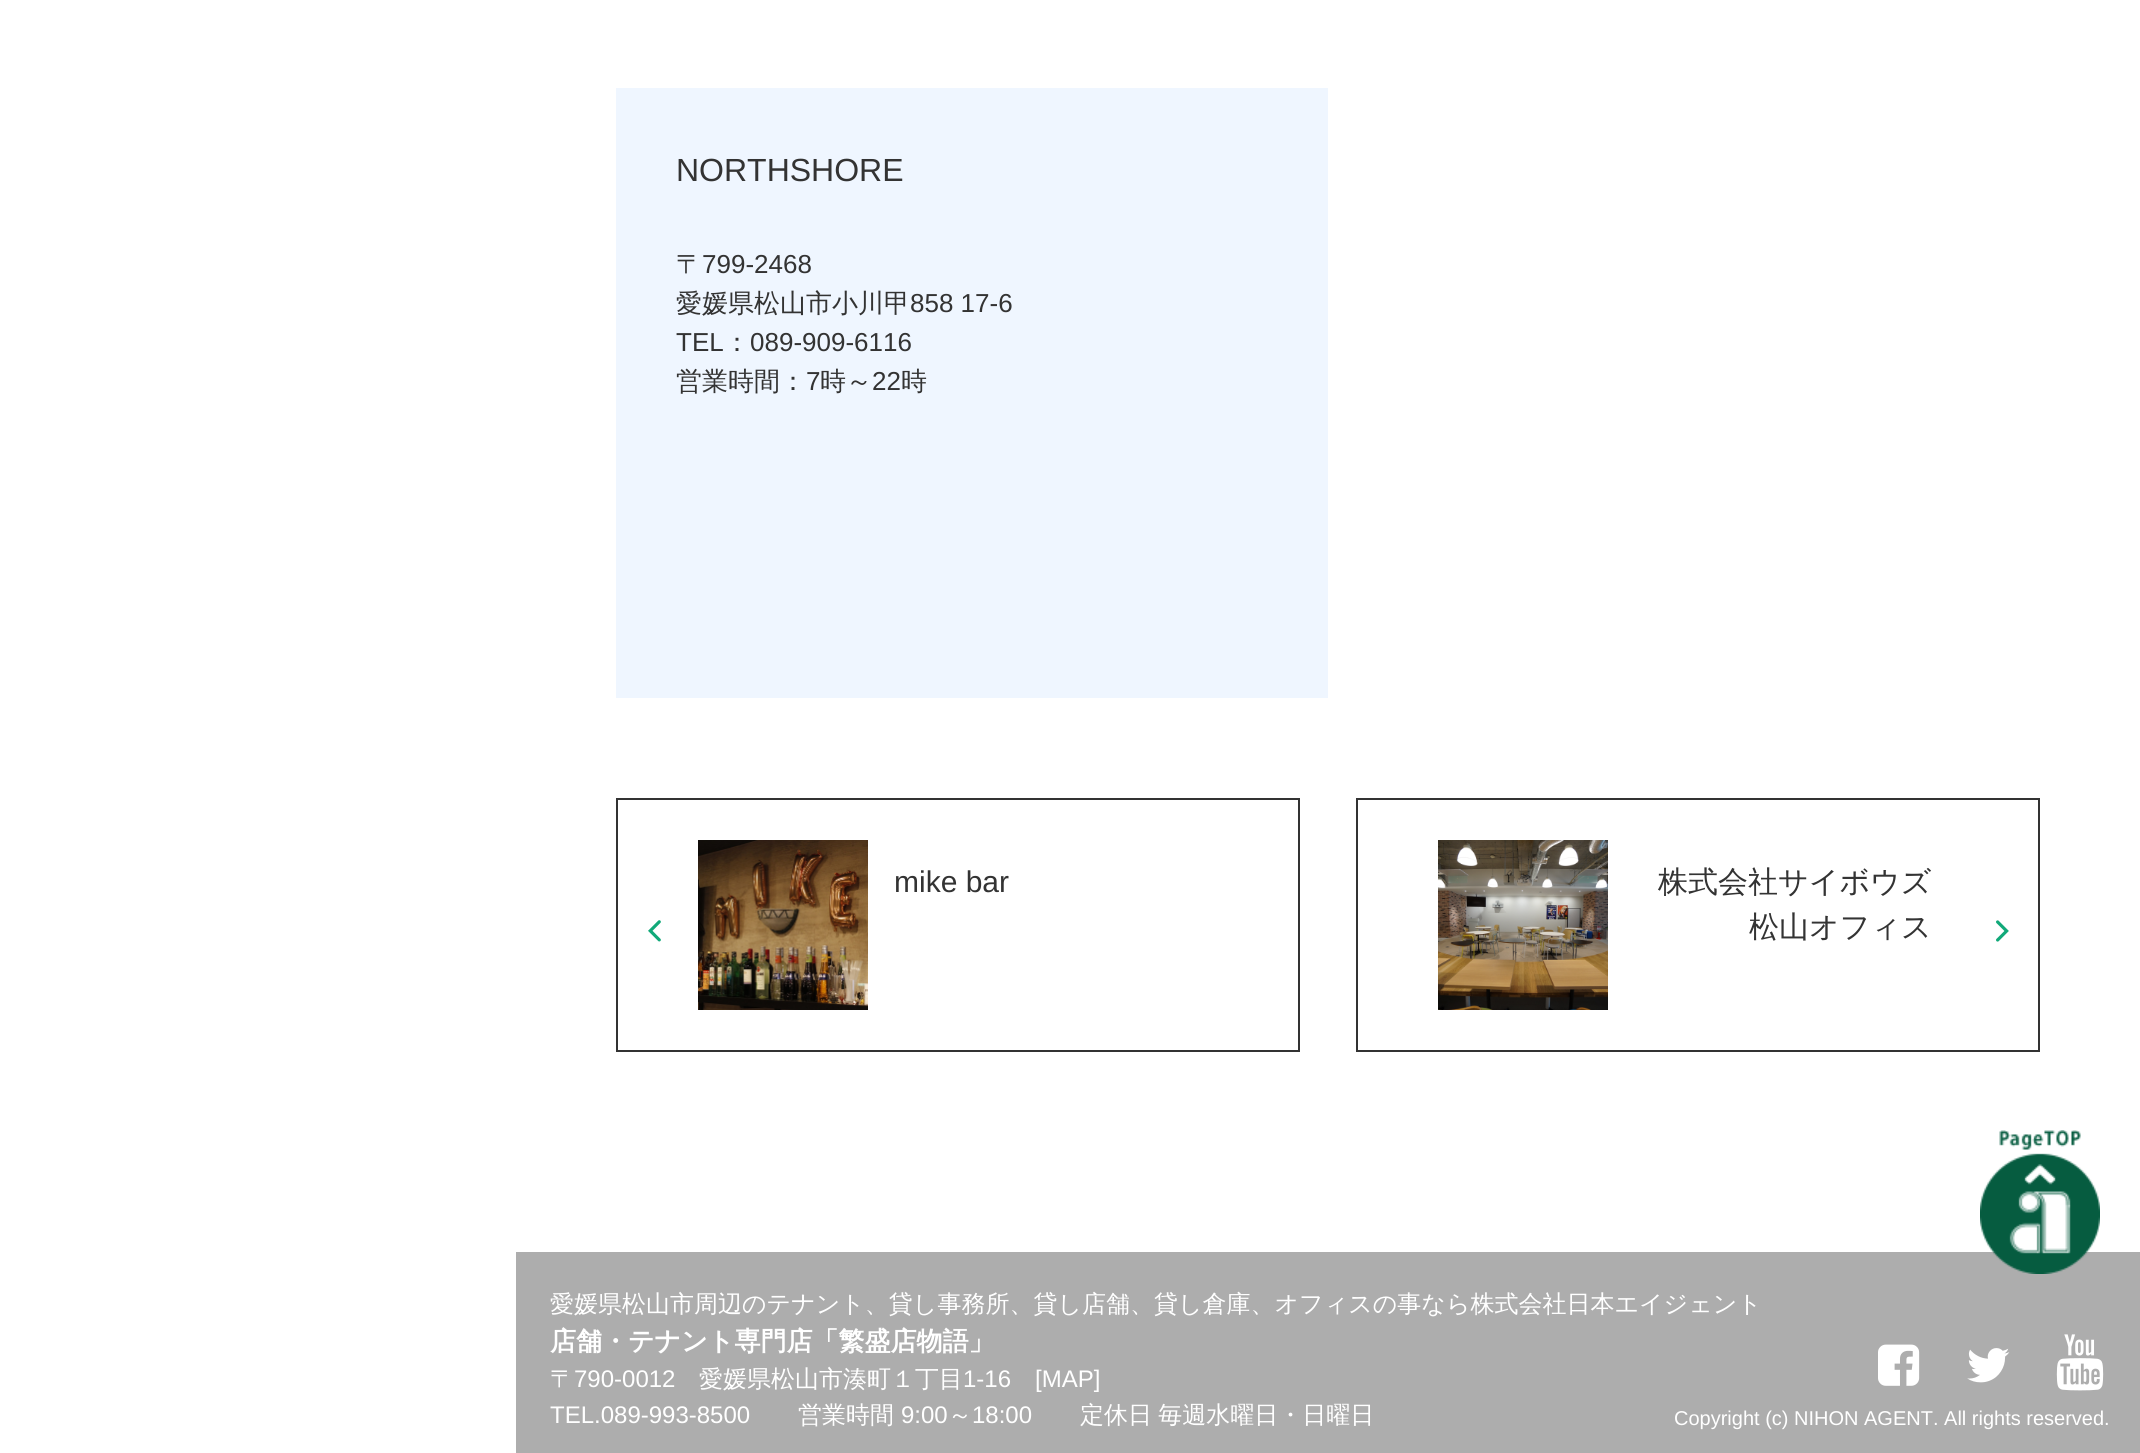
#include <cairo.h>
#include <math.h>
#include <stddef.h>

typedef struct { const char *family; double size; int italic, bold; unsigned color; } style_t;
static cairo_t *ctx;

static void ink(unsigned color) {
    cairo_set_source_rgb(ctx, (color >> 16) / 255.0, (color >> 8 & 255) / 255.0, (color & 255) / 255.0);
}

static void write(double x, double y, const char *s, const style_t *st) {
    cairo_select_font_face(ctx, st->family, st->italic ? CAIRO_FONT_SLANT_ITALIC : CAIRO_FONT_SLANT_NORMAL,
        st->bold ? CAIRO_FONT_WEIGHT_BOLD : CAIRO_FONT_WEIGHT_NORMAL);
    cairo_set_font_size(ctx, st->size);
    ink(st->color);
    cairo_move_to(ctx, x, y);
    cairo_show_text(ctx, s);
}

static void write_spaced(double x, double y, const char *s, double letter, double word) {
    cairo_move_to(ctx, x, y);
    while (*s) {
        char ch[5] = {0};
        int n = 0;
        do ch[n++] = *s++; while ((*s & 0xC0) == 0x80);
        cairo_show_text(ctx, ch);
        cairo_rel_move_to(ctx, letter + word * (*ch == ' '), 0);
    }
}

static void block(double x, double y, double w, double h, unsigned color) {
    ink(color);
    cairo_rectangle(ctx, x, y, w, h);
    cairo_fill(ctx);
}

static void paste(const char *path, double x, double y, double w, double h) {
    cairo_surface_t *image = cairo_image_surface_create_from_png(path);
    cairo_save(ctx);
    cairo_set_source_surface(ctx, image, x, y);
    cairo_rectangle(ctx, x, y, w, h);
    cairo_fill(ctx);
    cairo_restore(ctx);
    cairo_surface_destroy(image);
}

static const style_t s1 = {"Liberation Sans", 32, 0, 0, 0x333333};
static const style_t s2 = {"WenQuanYi Zen Hei Medium", 26, 0, 0, 0x333333};
static const style_t s3 = {"Liberation Sans", 26, 0, 0, 0x333333};
static const style_t s4 = {"Liberation Sans", 30, 0, 0, 0x333333};
static const style_t s5 = {"WenQuanYi Zen Hei Medium", 30, 0, 0, 0x333333};
static const style_t s6 = {"WenQuanYi Zen Hei Medium", 24, 0, 0, 0xffffff};
static const style_t s7 = {"WenQuanYi Zen Hei", 26, 0, 1, 0xffffff};
static const style_t s8 = {"Liberation Sans", 24, 0, 0, 0xffffff};
static const style_t s9 = {"Liberation Sans", 20, 0, 0, 0xffffff};

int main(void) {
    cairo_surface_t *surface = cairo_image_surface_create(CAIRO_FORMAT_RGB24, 2140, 1453);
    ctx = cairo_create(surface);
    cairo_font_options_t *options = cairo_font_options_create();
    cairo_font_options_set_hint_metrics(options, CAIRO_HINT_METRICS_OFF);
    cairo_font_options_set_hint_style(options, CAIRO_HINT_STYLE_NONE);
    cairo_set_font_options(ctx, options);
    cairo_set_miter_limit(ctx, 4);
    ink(0xffffff);
    cairo_paint(ctx);
    block(616, 88, 712, 610, 0xeff6ff);
    write(676, 181, "NORTHSHORE", &s1);
    write(676, 273, "〒", &s2);
    write(702, 273, "799-2468", &s3);
    write(676, 312, "愛媛県松山市小川甲", &s2);
    write(910, 312, "858 17-6", &s3);
    write(676, 351, "TEL", &s3);
    write(724, 351, "：", &s2);
    write(750, 351, "089-909-6116", &s3);
    write(676, 390, "営業時間：", &s2);
    write(806, 390, "7", &s3);
    write(820, 390, "時～", &s2);
    write(872, 390, "22", &s3);
    write(901, 390, "時", &s2);
    cairo_rectangle(ctx, 617, 799, 682, 252);
    cairo_stroke(ctx);
    paste("pic1.png", 698, 840, 170, 170);
    write(894, 892, "mike bar", &s4);
    paste("pic2.png", 648, 920, 13, 22);
    cairo_rectangle(ctx, 1357, 799, 682, 252);
    cairo_stroke(ctx);
    paste("pic3.png", 1438, 840, 170, 170);
    write(1658, 892, "株式会社サイボウズ", &s5);
    write(1749, 937, "松山オフィス", &s5);
    paste("pic4.png", 1996, 920, 13, 22);
    block(516, 1252, 1624, 201, 0xadadad);
    paste("pic5.png", 1980, 1130, 120, 144);
    write(550, 1312, "愛媛県松山市周辺のテナント、貸し事務所、貸し店舗、貸し倉庫、オフィスの事なら株式会社日本エイジェント", &s6);
    write(550, 1350, "店舗・テナント専門店「繁盛店物語」", &s7);
    write(550, 1387, "〒", &s6);
    write(574, 1387, "790-0012", &s8);
    write(699, 1387, "愛媛県松山市湊町１丁目", &s6);
    write(963, 1387, "1-16", &s8);
    write(1035, 1387, "[MAP]", &s8);
    write(550, 1423, "TEL.089-993-8500", &s8);
    write(798, 1423, "営業時間", &s6);
    write(901, 1423, "9:00", &s8);
    write(948, 1423, "～", &s6);
    write(972, 1423, "18:00", &s8);
    cairo_select_font_face(ctx, "WenQuanYi Zen Hei Medium", CAIRO_FONT_SLANT_NORMAL, CAIRO_FONT_WEIGHT_NORMAL);
    write_spaced(1080, 1423, "定休日 毎週水曜日・日曜日", 0, -1);
    paste("pic6.png", 1878, 1344, 42, 42);
    paste("pic7.png", 1967, 1348, 43, 35);
    paste("pic8.png", 2056, 1334, 48, 57);
    write(1674, 1425, "Copyright (c) NIHON AGENT. All rights reserved.", &s9);
    cairo_surface_write_to_png(surface, "screenshot.png");
    cairo_font_options_destroy(options);
    cairo_destroy(ctx);
    cairo_surface_destroy(surface);
    return 0;
}
